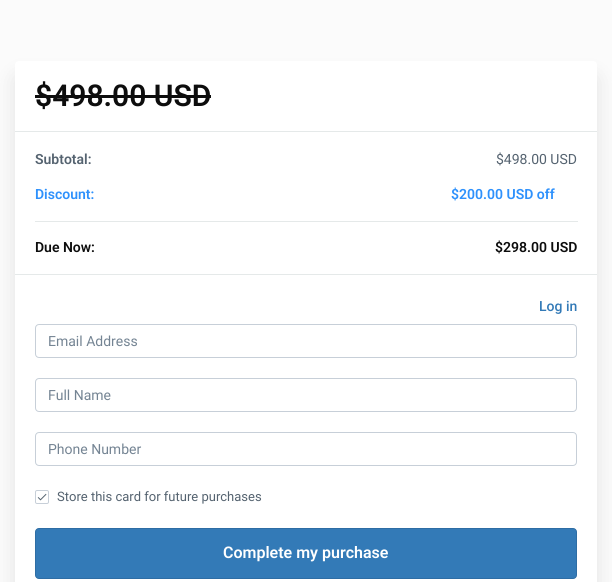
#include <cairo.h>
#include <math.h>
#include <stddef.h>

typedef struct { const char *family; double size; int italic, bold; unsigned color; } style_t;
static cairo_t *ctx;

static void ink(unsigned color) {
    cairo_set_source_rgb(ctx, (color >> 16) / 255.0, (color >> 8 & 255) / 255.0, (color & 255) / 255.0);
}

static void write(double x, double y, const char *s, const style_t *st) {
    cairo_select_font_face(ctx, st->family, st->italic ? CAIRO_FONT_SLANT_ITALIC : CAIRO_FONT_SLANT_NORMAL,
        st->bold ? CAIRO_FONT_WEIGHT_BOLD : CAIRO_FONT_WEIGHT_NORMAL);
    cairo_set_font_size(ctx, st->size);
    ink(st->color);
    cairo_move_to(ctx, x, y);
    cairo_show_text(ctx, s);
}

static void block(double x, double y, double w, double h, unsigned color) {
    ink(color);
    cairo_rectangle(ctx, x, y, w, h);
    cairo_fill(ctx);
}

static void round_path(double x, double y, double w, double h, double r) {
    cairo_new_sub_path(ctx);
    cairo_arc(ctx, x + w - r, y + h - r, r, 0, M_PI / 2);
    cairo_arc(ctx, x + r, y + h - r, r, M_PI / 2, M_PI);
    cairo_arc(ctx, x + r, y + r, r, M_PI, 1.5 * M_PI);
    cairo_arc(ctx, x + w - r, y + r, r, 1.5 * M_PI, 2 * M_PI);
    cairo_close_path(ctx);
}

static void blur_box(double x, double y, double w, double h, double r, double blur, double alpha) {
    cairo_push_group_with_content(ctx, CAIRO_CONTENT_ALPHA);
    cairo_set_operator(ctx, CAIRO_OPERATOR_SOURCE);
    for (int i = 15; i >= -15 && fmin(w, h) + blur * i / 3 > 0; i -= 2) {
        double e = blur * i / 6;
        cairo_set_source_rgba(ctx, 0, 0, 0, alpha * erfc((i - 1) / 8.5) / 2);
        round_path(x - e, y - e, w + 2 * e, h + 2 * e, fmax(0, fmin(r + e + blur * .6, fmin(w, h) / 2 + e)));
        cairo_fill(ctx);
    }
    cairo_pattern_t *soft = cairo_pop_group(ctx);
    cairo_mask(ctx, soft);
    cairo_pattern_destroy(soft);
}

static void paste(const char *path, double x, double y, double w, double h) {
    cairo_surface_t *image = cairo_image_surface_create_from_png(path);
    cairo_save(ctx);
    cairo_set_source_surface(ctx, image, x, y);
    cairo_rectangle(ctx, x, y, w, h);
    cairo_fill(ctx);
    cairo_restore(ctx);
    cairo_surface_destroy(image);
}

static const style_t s1 = {"Roboto SemiBold", 30, 0, 0, 0x0d0d0d};
static const style_t s2 = {"Roboto SemiBold", 14, 0, 0, 0x556370};
static const style_t s3 = {"Roboto", 14, 0, 0, 0x556370};
static const style_t s4 = {"Roboto SemiBold", 14, 0, 0, 0x2e91fc};
static const style_t s5 = {"Roboto SemiBold", 14, 0, 0, 0x0d0d0d};
static const style_t s6 = {"Roboto Medium", 14, 0, 0, 0x337ab7};
static const style_t s7 = {"Roboto", 14, 0, 0, 0x748493};
static const style_t s8 = {"Roboto", 13, 0, 0, 0x556370};
static const style_t s9 = {"Roboto SemiBold", 16, 0, 0, 0xffffff};

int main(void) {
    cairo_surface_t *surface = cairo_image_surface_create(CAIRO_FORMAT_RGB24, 612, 582);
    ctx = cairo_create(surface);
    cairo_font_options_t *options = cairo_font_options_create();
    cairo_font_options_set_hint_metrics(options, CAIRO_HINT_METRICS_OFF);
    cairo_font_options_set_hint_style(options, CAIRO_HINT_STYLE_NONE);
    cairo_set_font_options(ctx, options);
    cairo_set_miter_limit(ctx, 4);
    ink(0xfbfbfb);
    cairo_paint(ctx);
    ink(0x000000);
    blur_box(15, 76, 582, 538, 4, 10, 0.1);
    ink(0xffffff);
    round_path(15, 61, 582, 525, 4);
    cairo_fill(ctx);
    block(15, 131, 582, 1, 0xe5e9e9);
    write(35, 106, "$498.00 USD", &s1);
    block(35, 95, 176, 3, 0x0d0d0d);
    block(15, 274, 582, 1, 0xe5e9e9);
    write(35, 164, "Subtotal:", &s2);
    write(496, 164, "$498.00 USD", &s3);
    write(35, 199, "Discount:", &s4);
    write(451, 199, "$200.00 USD off", &s4);
    block(35, 221, 543, 1, 0xe5e9e9);
    write(35, 252, "Due Now:", &s5);
    write(495, 252, "$298.00 USD", &s5);
    write(539, 311, "Log in", &s6);
    round_path(35.5, 324.5, 541, 33, 3.5);
    ink(0xc7cfd8);
    cairo_set_line_width(ctx, 1);
    cairo_stroke(ctx);
    write(48, 346, "Email Address", &s7);
    round_path(35.5, 378.5, 541, 33, 3.5);
    ink(0xc7cfd8);
    cairo_stroke(ctx);
    write(48, 400, "Full Name", &s7);
    round_path(35.5, 432.5, 541, 33, 3.5);
    ink(0xc7cfd8);
    cairo_stroke(ctx);
    write(48, 454, "Phone Number", &s7);
    round_path(35.5, 490.5, 13, 13, 1.5);
    ink(0xc7cfd8);
    cairo_stroke(ctx);
    paste("pic1.png", 37, 493, 10, 8);
    write(57, 501, "Store this card for future purchases", &s8);
    ink(0x337ab7);
    round_path(35.5, 528.5, 541, 50, 3.5);
    cairo_fill_preserve(ctx);
    ink(0x2e6da4);
    cairo_stroke(ctx);
    write(223, 558, "Complete my purchase", &s9);
    cairo_surface_write_to_png(surface, "screenshot.png");
    cairo_font_options_destroy(options);
    cairo_destroy(ctx);
    cairo_surface_destroy(surface);
    return 0;
}
